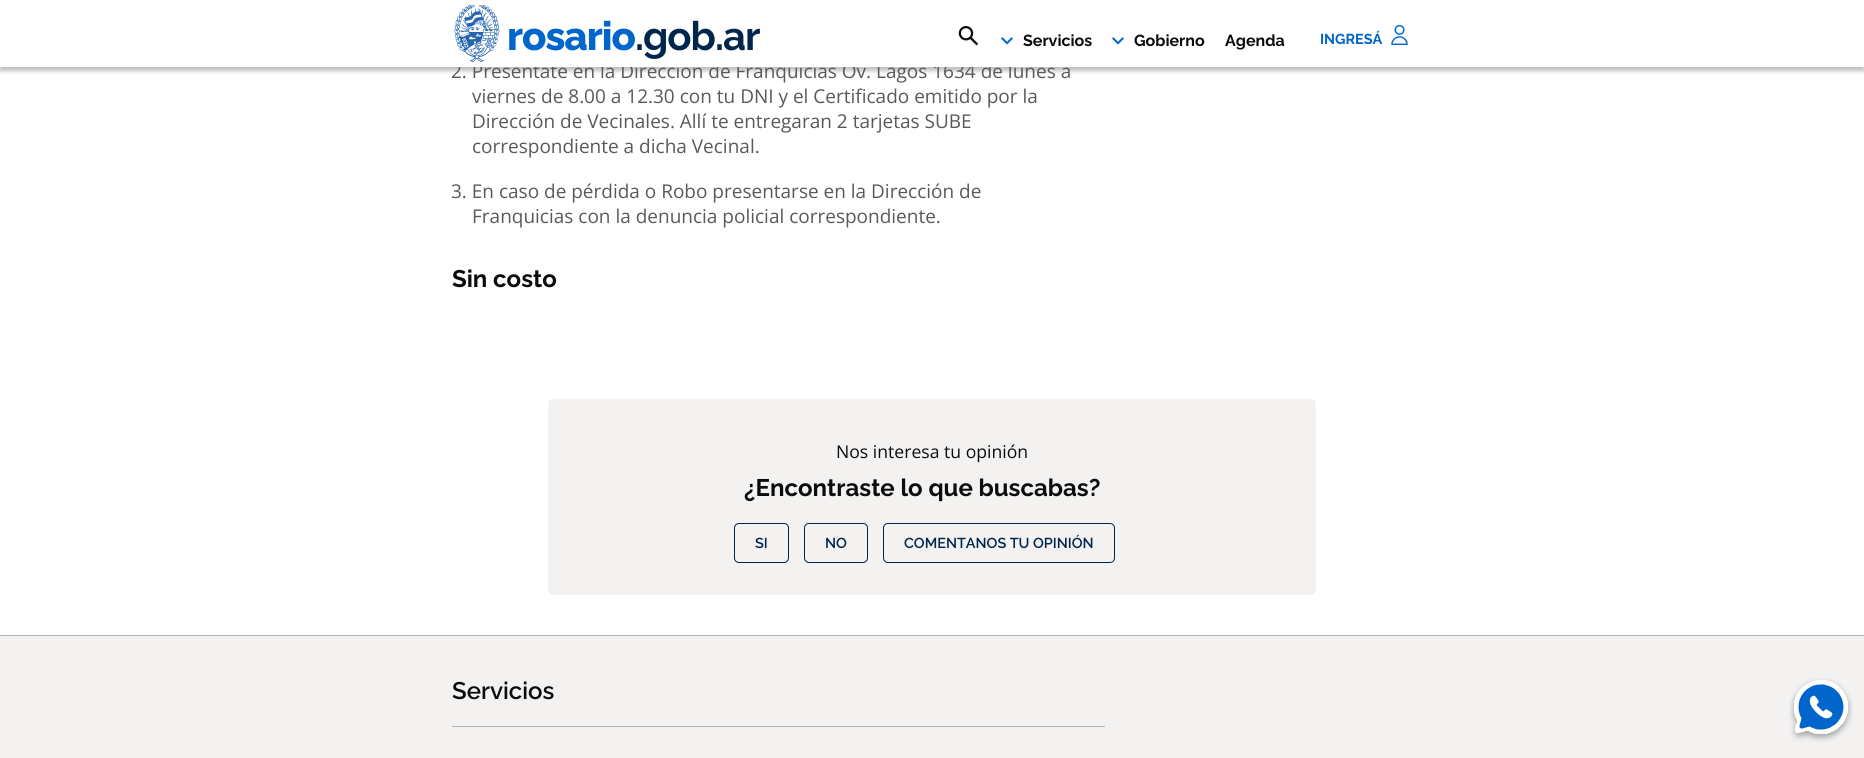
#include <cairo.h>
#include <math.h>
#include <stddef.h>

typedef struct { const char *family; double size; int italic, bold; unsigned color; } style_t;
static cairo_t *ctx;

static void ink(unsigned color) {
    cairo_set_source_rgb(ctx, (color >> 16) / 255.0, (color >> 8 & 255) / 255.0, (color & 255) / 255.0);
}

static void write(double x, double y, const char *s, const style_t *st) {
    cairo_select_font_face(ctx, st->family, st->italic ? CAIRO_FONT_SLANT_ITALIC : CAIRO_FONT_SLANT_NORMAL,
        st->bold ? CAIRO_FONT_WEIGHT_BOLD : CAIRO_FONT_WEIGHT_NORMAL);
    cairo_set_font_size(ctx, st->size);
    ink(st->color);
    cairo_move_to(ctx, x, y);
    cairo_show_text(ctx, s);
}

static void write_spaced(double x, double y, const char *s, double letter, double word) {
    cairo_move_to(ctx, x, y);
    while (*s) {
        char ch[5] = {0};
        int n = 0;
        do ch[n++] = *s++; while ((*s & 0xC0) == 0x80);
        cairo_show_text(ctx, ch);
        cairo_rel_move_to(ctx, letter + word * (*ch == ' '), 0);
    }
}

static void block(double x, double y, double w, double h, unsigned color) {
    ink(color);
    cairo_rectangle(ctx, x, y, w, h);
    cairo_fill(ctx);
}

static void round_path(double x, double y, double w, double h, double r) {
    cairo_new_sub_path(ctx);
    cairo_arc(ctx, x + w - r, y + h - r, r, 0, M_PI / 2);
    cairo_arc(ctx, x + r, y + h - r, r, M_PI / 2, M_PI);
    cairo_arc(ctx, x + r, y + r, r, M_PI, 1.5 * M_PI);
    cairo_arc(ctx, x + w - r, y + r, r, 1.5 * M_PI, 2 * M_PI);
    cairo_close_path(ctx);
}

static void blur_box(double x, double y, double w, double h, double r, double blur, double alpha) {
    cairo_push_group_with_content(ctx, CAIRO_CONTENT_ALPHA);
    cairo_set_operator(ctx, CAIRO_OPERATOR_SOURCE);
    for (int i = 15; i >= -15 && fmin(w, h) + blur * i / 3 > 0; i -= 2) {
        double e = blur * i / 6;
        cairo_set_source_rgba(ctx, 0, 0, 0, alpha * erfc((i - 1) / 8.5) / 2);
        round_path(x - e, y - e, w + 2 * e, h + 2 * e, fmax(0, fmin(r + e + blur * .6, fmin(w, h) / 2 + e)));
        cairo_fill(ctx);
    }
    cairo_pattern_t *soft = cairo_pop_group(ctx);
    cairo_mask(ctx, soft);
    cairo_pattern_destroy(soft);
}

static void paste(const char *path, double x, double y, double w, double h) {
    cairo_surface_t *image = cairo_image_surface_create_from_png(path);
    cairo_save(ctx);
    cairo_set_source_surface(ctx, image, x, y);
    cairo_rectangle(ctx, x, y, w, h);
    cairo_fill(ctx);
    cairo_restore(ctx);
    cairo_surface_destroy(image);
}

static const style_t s1 = {"Open Sans", 19, 0, 0, 0x58595b};
static const style_t s2 = {"Raleway", 16, 0, 1, 0x0b0c0c};
static const style_t s3 = {"Raleway", 14.4, 0, 1, 0x0066cc};
static const style_t s4 = {"Raleway", 24, 0, 1, 0x0b0c0c};
static const style_t s5 = {"Open Sans", 17.6, 0, 0, 0x0b0c0c};
static const style_t s6 = {"Raleway SemiBold", 14.4, 0, 0, 0x00264d};
static const style_t s7 = {"Raleway SemiBold", 24, 0, 0, 0x0b0c0c};

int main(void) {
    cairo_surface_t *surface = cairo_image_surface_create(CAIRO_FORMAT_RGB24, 1864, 758);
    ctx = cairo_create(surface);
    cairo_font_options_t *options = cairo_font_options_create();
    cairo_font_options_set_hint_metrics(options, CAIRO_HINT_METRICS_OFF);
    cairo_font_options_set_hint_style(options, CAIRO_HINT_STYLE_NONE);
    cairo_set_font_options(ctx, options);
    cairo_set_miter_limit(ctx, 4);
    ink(0xffffff);
    cairo_paint(ctx);
    ink(0x000000);
    blur_box(0, 4, 1864, 67, 0, 2, 0.25);
    write(451, 78, "2. Preséntate en la Dirección de Franquicias Ov. Lagos 1634 de lunes a", &s1);
    block(0, 1, 1864, 66, 0xffffff);
    paste("pic1.png", 454, 5, 46, 57);
    cairo_select_font_face(ctx, "Raleway ExtraBold", CAIRO_FONT_SLANT_NORMAL, CAIRO_FONT_WEIGHT_NORMAL);
    cairo_set_font_size(ctx, 40);
    ink(0x0066cc);
    write_spaced(507, 50, "rosario", -1, 0);
    cairo_select_font_face(ctx, "Raleway", CAIRO_FONT_SLANT_NORMAL, CAIRO_FONT_WEIGHT_BOLD);
    ink(0x00264d);
    write_spaced(635, 50, ".gob.ar", -1, 0);
    paste("pic2.png", 958, 26, 21, 20);
    paste("pic3.png", 1001, 37, 12, 8);
    write(1023, 46, "Servicios", &s2);
    paste("pic3.png", 1112, 37, 12, 8);
    write(1134, 46, "Gobierno", &s2);
    write(1225, 46, "Agenda", &s2);
    write(1320, 44, "INGRESÁ", &s3);
    paste("pic4.png", 1391, 25, 17, 20);
    write(472, 103, "viernes de 8.00 a 12.30 con tu DNI y el Certificado emitido por la", &s1);
    write(472, 128, "Dirección de Vecinales. Allí te entregaran 2 tarjetas SUBE", &s1);
    write(472, 153, "correspondiente a dicha Vecinal.", &s1);
    write(451, 198, "3. En caso de pérdida o Robo presentarse en la Dirección de", &s1);
    write(472, 223, "Franquicias con la denuncia policial correspondiente.", &s1);
    write(452, 287, "Sin costo", &s4);
    block(0, 636, 1864, 122, 0xf3f2f1);
    paste("pic5.png", 1789, 678, 64, 64);
    round_path(548, 399, 768, 196, 5);
    cairo_fill(ctx);
    write(836, 458, "Nos interesa tu opinión", &s5);
    write(744, 496, "¿Encontraste lo que buscabas?", &s4);
    round_path(734.5, 523.5, 54, 39, 4.5);
    ink(0x00264d);
    cairo_set_line_width(ctx, 1);
    cairo_stroke(ctx);
    write(755, 548, "SI", &s6);
    round_path(804.5, 523.5, 63, 39, 4.5);
    cairo_stroke(ctx);
    write(825, 548, "NO", &s6);
    round_path(883.5, 523.5, 231, 39, 4.5);
    cairo_stroke(ctx);
    write(904, 548, "COMENTANOS TU OPINIÓN", &s6);
    block(0, 635, 1864, 1, 0xb1b4b6);
    block(452, 726, 653, 1, 0xb1b4b6);
    write(452, 699, "Servicios", &s7);
    cairo_surface_write_to_png(surface, "screenshot.png");
    cairo_font_options_destroy(options);
    cairo_destroy(ctx);
    cairo_surface_destroy(surface);
    return 0;
}
